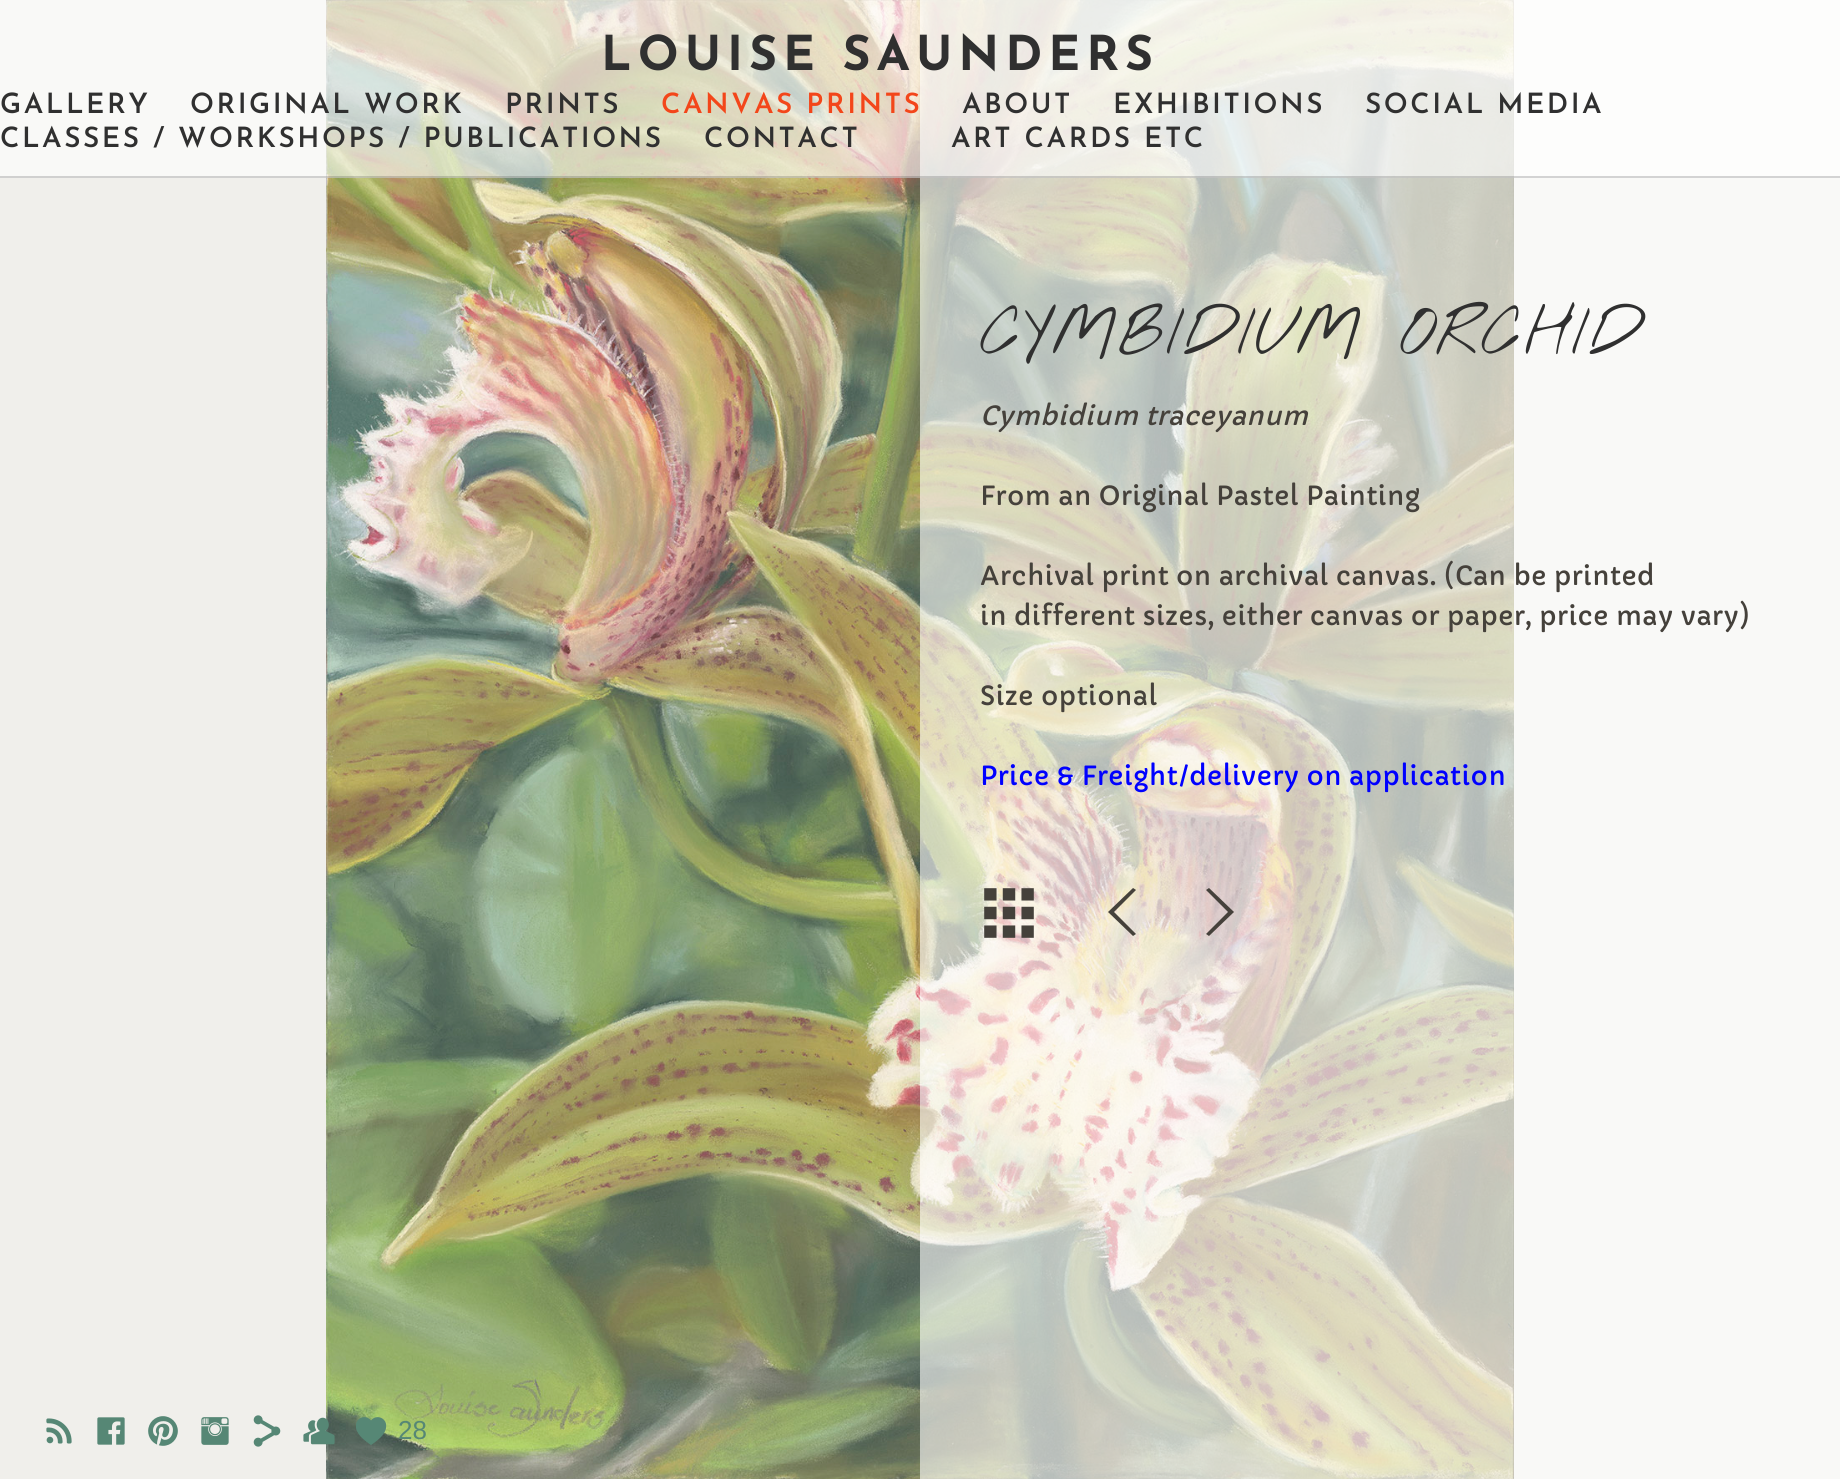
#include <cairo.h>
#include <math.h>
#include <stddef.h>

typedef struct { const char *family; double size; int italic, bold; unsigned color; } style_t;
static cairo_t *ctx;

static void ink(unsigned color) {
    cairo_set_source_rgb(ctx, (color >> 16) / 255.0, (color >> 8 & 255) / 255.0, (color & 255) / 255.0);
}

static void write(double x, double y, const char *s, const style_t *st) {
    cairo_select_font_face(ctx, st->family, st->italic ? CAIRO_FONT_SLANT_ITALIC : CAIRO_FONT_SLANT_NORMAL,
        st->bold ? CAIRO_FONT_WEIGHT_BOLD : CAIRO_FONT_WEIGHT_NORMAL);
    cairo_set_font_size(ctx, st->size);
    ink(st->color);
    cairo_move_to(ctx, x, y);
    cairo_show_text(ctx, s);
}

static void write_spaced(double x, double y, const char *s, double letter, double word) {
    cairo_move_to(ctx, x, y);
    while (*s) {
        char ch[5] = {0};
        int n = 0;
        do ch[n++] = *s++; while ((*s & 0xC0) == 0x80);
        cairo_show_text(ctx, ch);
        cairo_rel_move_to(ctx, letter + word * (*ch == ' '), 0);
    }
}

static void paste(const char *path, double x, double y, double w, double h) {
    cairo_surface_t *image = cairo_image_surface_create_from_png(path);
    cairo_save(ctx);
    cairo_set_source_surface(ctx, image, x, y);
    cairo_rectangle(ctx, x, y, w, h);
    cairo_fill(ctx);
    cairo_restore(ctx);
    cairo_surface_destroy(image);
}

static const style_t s1 = {"Liberation Sans", 26, 0, 0, 0x568775};

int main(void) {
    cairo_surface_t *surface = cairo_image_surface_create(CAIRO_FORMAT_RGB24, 1840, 1479);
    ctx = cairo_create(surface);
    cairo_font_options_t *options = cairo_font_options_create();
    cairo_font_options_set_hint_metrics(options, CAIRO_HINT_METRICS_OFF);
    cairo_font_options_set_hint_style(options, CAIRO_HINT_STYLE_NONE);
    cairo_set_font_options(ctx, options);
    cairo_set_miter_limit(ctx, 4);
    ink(0xf0efeb);
    cairo_paint(ctx);
    paste("pic1.png", 326, 0, 1188, 1479);
    cairo_set_source_rgba(ctx, 1, 1, 1, 0.6);
    cairo_rectangle(ctx, 920, 0, 920, 1479);
    cairo_fill(ctx);
    cairo_rectangle(ctx, 0, 0, 1840, 178);
    cairo_fill(ctx);
    cairo_set_source_rgba(ctx, 0.188, 0.188, 0.188, 0.2);
    cairo_rectangle(ctx, 0, 176, 1840, 2);
    cairo_fill(ctx);
    cairo_select_font_face(ctx, "Josefin Sans", CAIRO_FONT_SLANT_NORMAL, CAIRO_FONT_WEIGHT_BOLD);
    cairo_set_font_size(ctx, 48);
    ink(0x303030);
    write_spaced(601, 70, "LOUISE SAUNDERS", 6, 0);
    cairo_select_font_face(ctx, "Josefin Sans SemiBold", CAIRO_FONT_SLANT_NORMAL, CAIRO_FONT_WEIGHT_NORMAL);
    cairo_set_font_size(ctx, 28);
    write_spaced(0, 113, "GALLERY", 2.5, 0);
    write_spaced(190, 113, "ORIGINAL WORK", 2.5, 0);
    write_spaced(505, 113, "PRINTS", 2.5, 0);
    ink(0xf3461a);
    write_spaced(661, 113, "CANVAS PRINTS", 2.5, 0);
    ink(0x303030);
    write_spaced(962, 113, "ABOUT", 2.5, 0);
    write_spaced(1113, 113, "EXHIBITIONS", 2.5, 0);
    write_spaced(1365, 113, "SOCIAL MEDIA", 2.5, 0);
    write_spaced(0, 147, "CLASSES / WORKSHOPS / PUBLICATIONS", 2.5, 0);
    write_spaced(704, 147, "CONTACT", 2.5, 0);
    write_spaced(951, 147, "ART CARDS ETC", 2.5, 0);
    cairo_select_font_face(ctx, "Nothing You Could Do Thin", CAIRO_FONT_SLANT_NORMAL, CAIRO_FONT_WEIGHT_NORMAL);
    cairo_set_font_size(ctx, 66);
    write_spaced(980, 354, "CYMBIDIUM ORCHID", 2, 0);
    cairo_select_font_face(ctx, "Capriola", CAIRO_FONT_SLANT_ITALIC, CAIRO_FONT_WEIGHT_NORMAL);
    cairo_set_font_size(ctx, 26);
    ink(0x45413b);
    write_spaced(980, 425, "Cymbidium traceyanum", 0.5, 0);
    cairo_select_font_face(ctx, "Capriola", CAIRO_FONT_SLANT_NORMAL, CAIRO_FONT_WEIGHT_NORMAL);
    write_spaced(980, 505, "From an Original Pastel Painting", 0.5, 0);
    write_spaced(980, 585, "Archival print on archival canvas. (Can be printed", 0.5, 0);
    write_spaced(980, 625, "in different sizes, either canvas or paper, price may vary)", 0.5, 0);
    write_spaced(980, 705, "Size optional", 0.5, 0);
    ink(0x0000ff);
    write_spaced(980, 785, "Price & Freight/delivery on application", 0.5, 0);
    paste("pic2.png", 984, 888, 50, 50);
    ink(0x45413b);
    cairo_new_path(ctx);
    cairo_move_to(ctx, 1133, 936);
    cairo_line_to(ctx, 1136, 934);
    cairo_line_to(ctx, 1114, 912);
    cairo_line_to(ctx, 1136, 890);
    cairo_line_to(ctx, 1133, 888);
    cairo_line_to(ctx, 1108, 912);
    cairo_close_path(ctx);
    cairo_fill(ctx);
    cairo_new_path(ctx);
    cairo_move_to(ctx, 1234, 912);
    cairo_line_to(ctx, 1209, 888);
    cairo_line_to(ctx, 1206, 890);
    cairo_line_to(ctx, 1228, 912);
    cairo_line_to(ctx, 1206, 934);
    cairo_line_to(ctx, 1209, 936);
    cairo_close_path(ctx);
    cairo_fill(ctx);
    paste("pic3.png", 46, 1418, 26, 26);
    paste("pic4.png", 97, 1417, 28, 28);
    paste("pic5.png", 148, 1416, 30, 30);
    paste("pic6.png", 201, 1417, 28, 28);
    paste("pic7.png", 253, 1415, 28, 32);
    paste("pic8.png", 303, 1417, 32, 28);
    paste("pic9.png", 356, 1417, 31, 28);
    write(398, 1439, "28", &s1);
    cairo_surface_write_to_png(surface, "screenshot.png");
    cairo_font_options_destroy(options);
    cairo_destroy(ctx);
    cairo_surface_destroy(surface);
    return 0;
}
